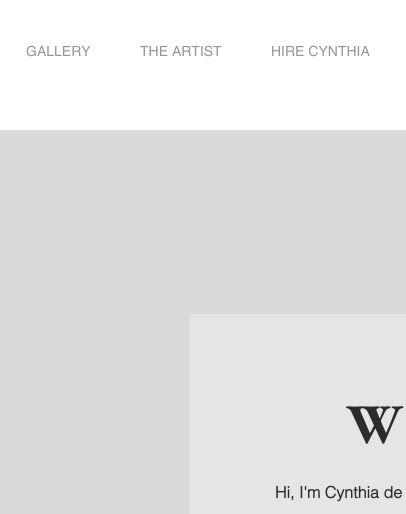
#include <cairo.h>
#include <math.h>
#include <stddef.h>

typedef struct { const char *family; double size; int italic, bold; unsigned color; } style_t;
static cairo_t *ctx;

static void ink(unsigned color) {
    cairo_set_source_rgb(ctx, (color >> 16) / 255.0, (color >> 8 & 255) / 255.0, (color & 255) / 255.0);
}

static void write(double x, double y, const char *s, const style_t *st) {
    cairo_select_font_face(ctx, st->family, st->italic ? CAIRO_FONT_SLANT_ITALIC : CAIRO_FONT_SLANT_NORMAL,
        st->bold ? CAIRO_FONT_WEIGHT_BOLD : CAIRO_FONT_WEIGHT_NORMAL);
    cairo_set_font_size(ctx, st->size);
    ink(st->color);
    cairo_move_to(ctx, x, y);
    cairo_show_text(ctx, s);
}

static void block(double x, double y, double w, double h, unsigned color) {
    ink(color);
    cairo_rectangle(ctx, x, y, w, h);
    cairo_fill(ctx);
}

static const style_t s1 = {"helvetica", 14, 0, 0, 0x979595};
static const style_t s2 = {"EB Garamond", 56, 0, 1, 0x2b2b2b};
static const style_t s3 = {"helvetica", 16, 0, 1, 0x2b2b2b};

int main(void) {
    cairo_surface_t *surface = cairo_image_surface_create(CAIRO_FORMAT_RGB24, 406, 514);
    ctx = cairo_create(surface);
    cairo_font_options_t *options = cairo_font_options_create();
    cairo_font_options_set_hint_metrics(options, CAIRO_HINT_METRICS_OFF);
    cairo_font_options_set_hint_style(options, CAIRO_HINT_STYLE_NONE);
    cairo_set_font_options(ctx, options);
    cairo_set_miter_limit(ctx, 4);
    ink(0xffffff);
    cairo_paint(ctx);
    write(26, 56, "GALLERY", &s1);
    write(140, 56, "THE ARTIST", &s1);
    write(271, 56, "HIRE CYNTHIA", &s1);
    block(0, 130, 406, 384, 0xdadada);
    block(190, 314, 216, 200, 0xe5e5e5);
    write(346, 443, "W", &s2);
    write(275, 498, "Hi, I'm Cynthia de", &s3);
    cairo_surface_write_to_png(surface, "screenshot.png");
    cairo_font_options_destroy(options);
    cairo_destroy(ctx);
    cairo_surface_destroy(surface);
    return 0;
}
